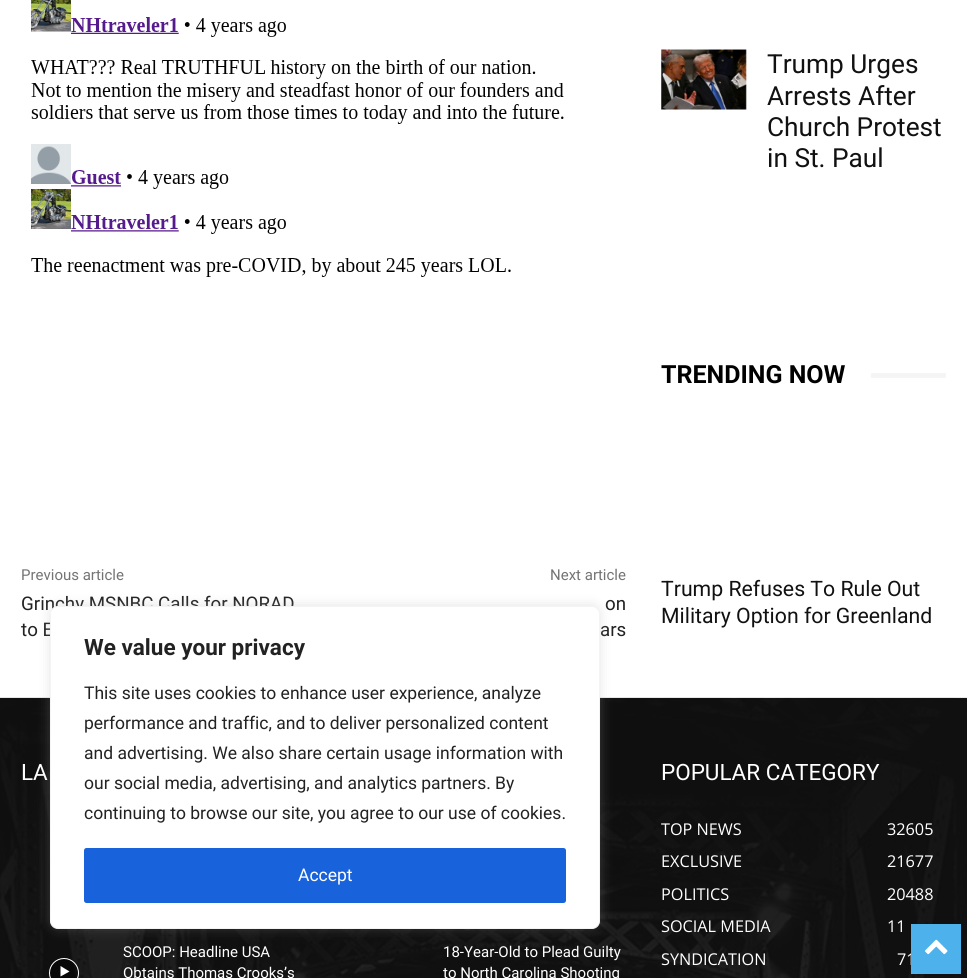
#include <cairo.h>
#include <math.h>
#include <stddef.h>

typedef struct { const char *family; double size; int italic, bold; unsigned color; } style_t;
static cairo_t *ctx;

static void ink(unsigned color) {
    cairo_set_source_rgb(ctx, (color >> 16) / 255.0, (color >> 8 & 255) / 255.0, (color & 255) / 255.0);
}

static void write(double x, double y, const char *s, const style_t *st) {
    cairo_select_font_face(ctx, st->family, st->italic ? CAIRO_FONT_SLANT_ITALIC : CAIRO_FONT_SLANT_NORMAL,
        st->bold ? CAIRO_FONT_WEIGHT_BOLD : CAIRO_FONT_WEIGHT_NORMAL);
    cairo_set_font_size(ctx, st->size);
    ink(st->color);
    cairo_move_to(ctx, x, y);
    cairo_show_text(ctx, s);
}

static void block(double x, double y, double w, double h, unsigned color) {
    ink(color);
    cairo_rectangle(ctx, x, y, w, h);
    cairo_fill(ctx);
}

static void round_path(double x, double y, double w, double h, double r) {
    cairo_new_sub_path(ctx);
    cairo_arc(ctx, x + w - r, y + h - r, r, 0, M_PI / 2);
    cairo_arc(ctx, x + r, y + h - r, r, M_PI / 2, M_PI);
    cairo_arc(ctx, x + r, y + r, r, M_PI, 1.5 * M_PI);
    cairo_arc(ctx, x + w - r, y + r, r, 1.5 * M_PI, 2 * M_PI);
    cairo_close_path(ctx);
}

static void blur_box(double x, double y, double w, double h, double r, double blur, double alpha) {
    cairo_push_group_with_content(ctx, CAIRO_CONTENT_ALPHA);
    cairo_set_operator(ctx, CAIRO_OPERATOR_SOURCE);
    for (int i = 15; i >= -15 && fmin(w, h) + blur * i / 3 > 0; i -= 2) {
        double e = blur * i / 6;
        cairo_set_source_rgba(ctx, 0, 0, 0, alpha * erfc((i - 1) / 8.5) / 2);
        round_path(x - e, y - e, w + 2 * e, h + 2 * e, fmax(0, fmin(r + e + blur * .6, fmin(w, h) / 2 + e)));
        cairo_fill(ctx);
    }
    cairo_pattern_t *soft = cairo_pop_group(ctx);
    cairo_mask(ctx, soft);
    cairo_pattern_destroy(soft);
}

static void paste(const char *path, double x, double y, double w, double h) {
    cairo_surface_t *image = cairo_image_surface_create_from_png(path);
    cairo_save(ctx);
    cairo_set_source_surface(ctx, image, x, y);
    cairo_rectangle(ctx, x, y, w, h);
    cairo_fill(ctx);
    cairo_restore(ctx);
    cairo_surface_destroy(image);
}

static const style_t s1 = {"Roboto", 15, 0, 0, 0x747474};
static const style_t s2 = {"Roboto", 18.75, 0, 0, 0x222222};
static const style_t s3 = {"Roboto", 26.25, 0, 0, 0x111111};
static const style_t s4 = {"Roboto", 25, 0, 1, 0x000000};
static const style_t s5 = {"Roboto", 21.25, 0, 0, 0x111111};
static const style_t s6 = {"Roboto", 22.5, 0, 0, 0xffffff};
static const style_t s7 = {"Roboto", 15, 0, 0, 0xffffff};
static const style_t s8 = {"Open Sans", 16.25, 0, 0, 0xffffff};
static const style_t s9 = {"Roboto", 22.5, 0, 1, 0x222222};
static const style_t s10 = {"Roboto", 17.5, 0, 0, 0x222222};
static const style_t s11 = {"Roboto", 17.5, 0, 0, 0xffffff};

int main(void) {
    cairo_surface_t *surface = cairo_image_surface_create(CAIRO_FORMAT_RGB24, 967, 978);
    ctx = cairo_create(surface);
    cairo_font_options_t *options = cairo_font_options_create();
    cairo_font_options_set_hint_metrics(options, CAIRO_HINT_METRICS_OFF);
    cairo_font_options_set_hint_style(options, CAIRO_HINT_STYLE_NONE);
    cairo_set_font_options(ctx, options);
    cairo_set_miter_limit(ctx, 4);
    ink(0xffffff);
    cairo_paint(ctx);
    paste("pic1.png", 31, 0, 533, 277);
    write(21, 580, "Previous article", &s1);
    write(21, 610, "Grinchy MSNBC Calls for NORAD", &s2);
    write(21, 636, "to E", &s2);
    write(550, 580, "Next article", &s1);
    write(605, 610, "on", &s2);
    write(600, 636, "ars", &s2);
    paste("pic2.png", 661, 49, 86, 61);
    write(767, 73, "Trump Urges", &s3);
    write(767, 105, "Arrests After", &s3);
    write(767, 136, "Church Protest", &s3);
    write(767, 167, "in St. Paul", &s3);
    write(661, 383, "TRENDING NOW", &s4);
    block(871, 373, 75, 5, 0xf5f5f5);
    write(661, 596, "Trump Refuses To Rule Out", &s5);
    write(661, 623, "Military Option for Greenland", &s5);
    block(0, 698, 967, 280, 0x111111);
    paste("pic3.png", 0, 697, 967, 281);
    write(21, 780, "LA", &s6);
    cairo_set_source_rgba(ctx, 0, 0, 0, 0.48);
    cairo_new_path(ctx);
    cairo_arc(ctx, 64, 973, 14.5, 0, 2 * M_PI);
    cairo_fill_preserve(ctx);
    ink(0xffffff);
    cairo_set_line_width(ctx, 1);
    cairo_stroke(ctx);
    cairo_new_path(ctx);
    cairo_move_to(ctx, 60.5, 966);
    cairo_line_to(ctx, 60.5, 976.5);
    cairo_line_to(ctx, 69.5, 971.5);
    cairo_close_path(ctx);
    cairo_fill(ctx);
    write(123, 957, "SCOOP: Headline USA", &s7);
    write(123, 978, "Obtains Thomas Crooks’s", &s7);
    write(443, 957, "18-Year-Old to Plead Guilty", &s7);
    write(443, 978, "to North Carolina Shooting", &s7);
    write(661, 780, "POPULAR CATEGORY", &s6);
    write(661, 835, "TOP NEWS", &s8);
    write(887, 835, "32605", &s8);
    write(661, 867, "EXCLUSIVE", &s8);
    write(887, 867, "21677", &s8);
    write(661, 900, "POLITICS", &s8);
    write(887, 900, "20488", &s8);
    write(661, 932, "SOCIAL MEDIA", &s8);
    write(887, 932, "11", &s8);
    write(661, 965, "SYNDICATION", &s8);
    write(897, 965, "71", &s8);
    ink(0xacabab);
    blur_box(50, 605, 550, 323, 8, 6, 0.3);
    ink(0xffffff);
    round_path(50.5, 606.5, 549, 322, 7.5);
    cairo_fill_preserve(ctx);
    ink(0xf4f4f4);
    cairo_stroke(ctx);
    write(84, 655, "We value your privacy", &s9);
    write(84, 699, "This site uses cookies to enhance user experience, analyze", &s10);
    write(84, 729, "performance and traffic, and to deliver personalized content", &s10);
    write(84, 759, "and advertising. We also share certain usage information with", &s10);
    write(84, 789, "our social media, advertising, and analytics partners. By", &s10);
    write(84, 819, "continuing to browse our site, you agree to our use of cookies.", &s10);
    ink(0x1863dc);
    round_path(85.5, 849.5, 479, 52, 1);
    cairo_fill_preserve(ctx);
    cairo_set_line_width(ctx, 3);
    cairo_stroke(ctx);
    write(298, 881, "Accept", &s11);
    block(911, 924, 50, 50, 0x4db2ec);
    paste("pic4.png", 925, 939, 23, 16);
    cairo_surface_write_to_png(surface, "screenshot.png");
    cairo_font_options_destroy(options);
    cairo_destroy(ctx);
    cairo_surface_destroy(surface);
    return 0;
}
